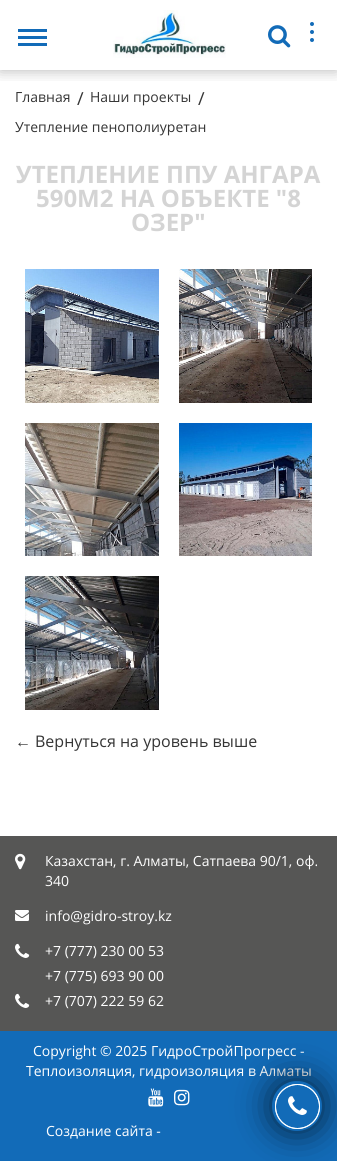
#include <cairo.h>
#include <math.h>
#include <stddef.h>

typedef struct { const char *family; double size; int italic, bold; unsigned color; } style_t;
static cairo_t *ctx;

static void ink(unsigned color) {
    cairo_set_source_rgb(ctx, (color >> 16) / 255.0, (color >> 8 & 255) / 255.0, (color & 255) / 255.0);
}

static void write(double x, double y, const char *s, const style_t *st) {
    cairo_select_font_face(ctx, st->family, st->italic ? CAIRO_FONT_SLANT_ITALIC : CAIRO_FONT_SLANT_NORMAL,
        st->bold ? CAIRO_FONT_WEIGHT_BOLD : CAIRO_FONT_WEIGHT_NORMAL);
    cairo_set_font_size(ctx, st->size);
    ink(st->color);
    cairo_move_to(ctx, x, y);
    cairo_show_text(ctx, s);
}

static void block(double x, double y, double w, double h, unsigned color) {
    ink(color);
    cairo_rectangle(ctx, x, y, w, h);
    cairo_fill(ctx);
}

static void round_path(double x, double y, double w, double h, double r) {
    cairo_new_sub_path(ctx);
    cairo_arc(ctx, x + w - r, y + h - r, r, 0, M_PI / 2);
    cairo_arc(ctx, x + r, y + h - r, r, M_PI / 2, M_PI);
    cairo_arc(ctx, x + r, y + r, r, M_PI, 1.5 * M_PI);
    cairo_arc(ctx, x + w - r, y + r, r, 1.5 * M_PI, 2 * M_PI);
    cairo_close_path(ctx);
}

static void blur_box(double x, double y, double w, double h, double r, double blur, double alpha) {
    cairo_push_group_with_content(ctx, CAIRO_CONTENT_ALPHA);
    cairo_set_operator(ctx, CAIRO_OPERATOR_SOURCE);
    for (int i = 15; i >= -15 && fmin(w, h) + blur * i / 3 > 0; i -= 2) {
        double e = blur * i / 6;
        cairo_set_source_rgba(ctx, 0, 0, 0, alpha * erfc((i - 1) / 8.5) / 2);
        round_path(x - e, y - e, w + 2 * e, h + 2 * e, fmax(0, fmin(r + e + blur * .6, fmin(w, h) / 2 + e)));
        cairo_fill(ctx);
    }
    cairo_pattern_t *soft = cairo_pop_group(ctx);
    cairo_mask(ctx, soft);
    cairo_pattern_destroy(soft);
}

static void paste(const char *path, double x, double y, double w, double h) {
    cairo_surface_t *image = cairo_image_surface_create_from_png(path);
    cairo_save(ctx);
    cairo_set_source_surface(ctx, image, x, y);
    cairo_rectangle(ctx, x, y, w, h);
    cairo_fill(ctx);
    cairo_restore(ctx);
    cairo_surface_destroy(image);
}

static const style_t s1 = {"Open Sans", 14, 0, 0, 0x353535};
static const style_t s2 = {"Open Sans", 18, 0, 0, 0x353535};
static const style_t s3 = {"Open Sans", 24, 0, 1, 0xd4d4d4};
static const style_t s4 = {"Liberation Serif", 16, 0, 0, 0x353535};
static const style_t s5 = {"Open Sans", 16, 0, 0, 0x353535};
static const style_t s6 = {"Open Sans", 14, 0, 0, 0xffffff};

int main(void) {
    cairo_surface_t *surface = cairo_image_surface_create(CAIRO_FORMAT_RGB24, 337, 1161);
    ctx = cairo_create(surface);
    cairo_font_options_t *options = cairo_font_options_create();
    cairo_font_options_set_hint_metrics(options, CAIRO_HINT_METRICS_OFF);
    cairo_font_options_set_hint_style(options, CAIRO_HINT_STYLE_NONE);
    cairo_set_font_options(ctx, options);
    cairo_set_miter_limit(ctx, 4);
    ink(0xffffff);
    cairo_paint(ctx);
    cairo_save(ctx);
    cairo_rectangle(ctx, 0, 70, 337, 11);
    cairo_clip(ctx);
    ink(0x000000);
    blur_box(0, 0, 337, 70, 0, 7.5, 0.3);
    cairo_restore(ctx);
    paste("pic1.png", 113, 10, 113, 48);
    ink(0x126bb8);
    cairo_arc(ctx, 312, 24, 2, 0, 2 * M_PI);
    cairo_fill(ctx);
    cairo_arc(ctx, 312, 32, 2, 0, 2 * M_PI);
    cairo_fill(ctx);
    cairo_arc(ctx, 312, 40, 2, 0, 2 * M_PI);
    cairo_fill(ctx);
    block(18, 29, 29, 3, 0x126bb8);
    block(18, 36, 29, 3, 0x126bb8);
    block(18, 43, 29, 3, 0x126bb8);
    paste("pic2.png", 268, 25, 23, 23);
    write(15, 102, "Главная", &s1);
    write(77, 105, "/", &s2);
    write(90, 102, "Наши проекты", &s1);
    write(198, 105, "/", &s2);
    write(15, 132, "Утепление пенополиуретан", &s1);
    write(16, 183, "УТЕПЛЕНИЕ ППУ АНГАРА", &s3);
    write(36, 207, "590М2 НА ОБЪЕКТЕ \"8", &s3);
    write(131, 231, "ОЗЕР\"", &s3);
    paste("pic3.png", 25, 269, 134, 134);
    paste("pic4.png", 179, 269, 133, 134);
    paste("pic5.png", 25, 423, 134, 133);
    paste("pic6.png", 179, 423, 133, 133);
    paste("pic7.png", 25, 576, 134, 134);
    write(15, 747, "←", &s4);
    write(35, 747, "Вернуться на уровень выше", &s5);
    block(0, 836, 337, 195, 0x565655);
    paste("pic8.png", 15, 853, 11, 17);
    write(45, 866, "Казахстан, г. Алматы, Сатпаева 90/1, оф.", &s6);
    write(45, 886, "340", &s6);
    paste("pic9.png", 15, 910, 14, 11);
    write(45, 921, "info@gidro-stroy.kz", &s6);
    paste("pic10.png", 15, 943, 15, 15);
    write(45, 956, "+7 (777) 230 00 53", &s6);
    write(45, 981, "+7 (775) 693 90 00", &s6);
    paste("pic10.png", 15, 993, 15, 15);
    write(45, 1006, "+7 (707) 222 59 62", &s6);
    block(0, 1031, 337, 130, 0x126bb8);
    write(33, 1056, "Copyright © 2025 ГидроСтройПрогресс -", &s6);
    write(26, 1076, "Теплоизоляция, гидроизоляция в Алматы", &s6);
    paste("pic11.png", 148, 1088, 16, 19);
    paste("pic12.png", 174, 1089, 16, 17);
    write(46, 1136, "Создание сайта -", &s6);
    ink(0x000000);
    blur_box(272, 1081, 50, 50, 25, 17.5, 0.7);
    ink(0x126bb8);
    cairo_arc(ctx, 297, 1106, 25, 0, 2 * M_PI);
    cairo_fill(ctx);
    paste("pic13.png", 288, 1096, 19, 19);
    cairo_arc(ctx, 297.5, 1106.5, 22, 0, 2 * M_PI);
    ink(0xffffff);
    cairo_set_line_width(ctx, 1);
    cairo_stroke(ctx);
    cairo_arc(ctx, 297.5, 1106.5, 22, 0, 2 * M_PI);
    cairo_stroke(ctx);
    cairo_surface_write_to_png(surface, "screenshot.png");
    cairo_font_options_destroy(options);
    cairo_destroy(ctx);
    cairo_surface_destroy(surface);
    return 0;
}
